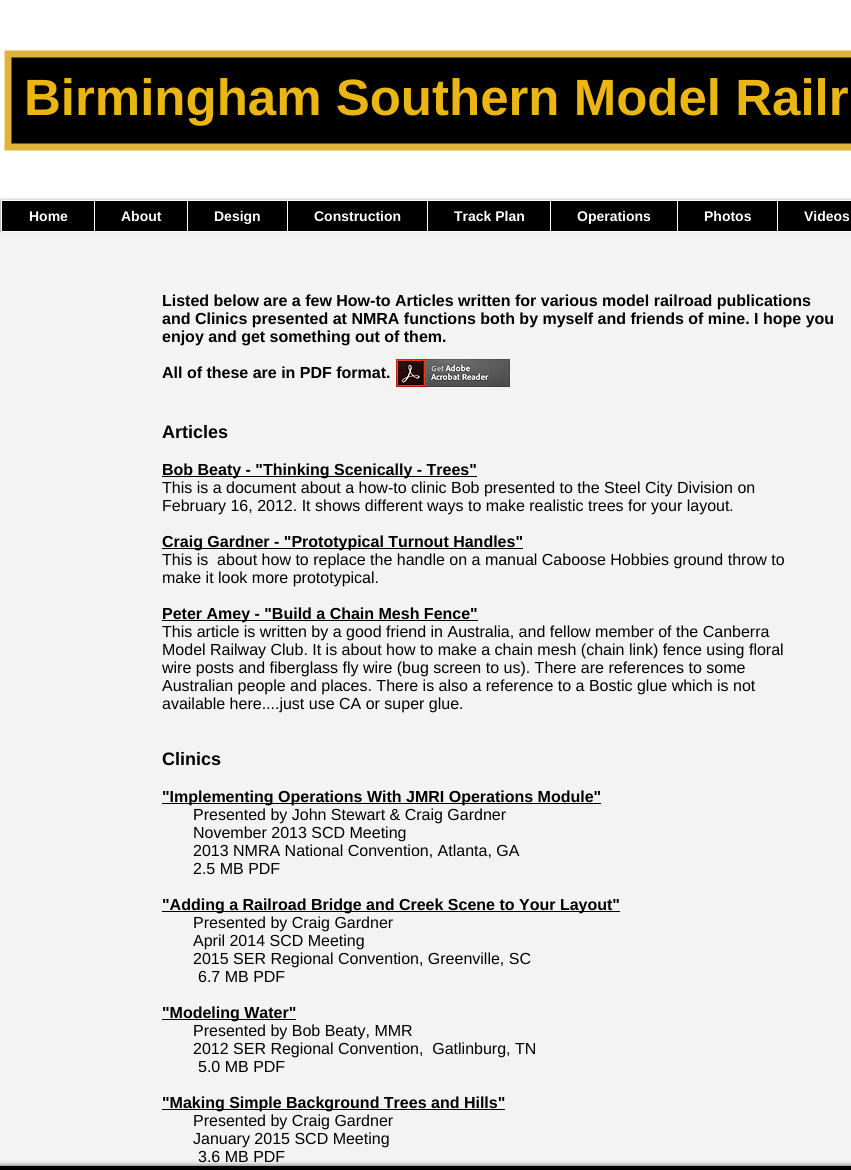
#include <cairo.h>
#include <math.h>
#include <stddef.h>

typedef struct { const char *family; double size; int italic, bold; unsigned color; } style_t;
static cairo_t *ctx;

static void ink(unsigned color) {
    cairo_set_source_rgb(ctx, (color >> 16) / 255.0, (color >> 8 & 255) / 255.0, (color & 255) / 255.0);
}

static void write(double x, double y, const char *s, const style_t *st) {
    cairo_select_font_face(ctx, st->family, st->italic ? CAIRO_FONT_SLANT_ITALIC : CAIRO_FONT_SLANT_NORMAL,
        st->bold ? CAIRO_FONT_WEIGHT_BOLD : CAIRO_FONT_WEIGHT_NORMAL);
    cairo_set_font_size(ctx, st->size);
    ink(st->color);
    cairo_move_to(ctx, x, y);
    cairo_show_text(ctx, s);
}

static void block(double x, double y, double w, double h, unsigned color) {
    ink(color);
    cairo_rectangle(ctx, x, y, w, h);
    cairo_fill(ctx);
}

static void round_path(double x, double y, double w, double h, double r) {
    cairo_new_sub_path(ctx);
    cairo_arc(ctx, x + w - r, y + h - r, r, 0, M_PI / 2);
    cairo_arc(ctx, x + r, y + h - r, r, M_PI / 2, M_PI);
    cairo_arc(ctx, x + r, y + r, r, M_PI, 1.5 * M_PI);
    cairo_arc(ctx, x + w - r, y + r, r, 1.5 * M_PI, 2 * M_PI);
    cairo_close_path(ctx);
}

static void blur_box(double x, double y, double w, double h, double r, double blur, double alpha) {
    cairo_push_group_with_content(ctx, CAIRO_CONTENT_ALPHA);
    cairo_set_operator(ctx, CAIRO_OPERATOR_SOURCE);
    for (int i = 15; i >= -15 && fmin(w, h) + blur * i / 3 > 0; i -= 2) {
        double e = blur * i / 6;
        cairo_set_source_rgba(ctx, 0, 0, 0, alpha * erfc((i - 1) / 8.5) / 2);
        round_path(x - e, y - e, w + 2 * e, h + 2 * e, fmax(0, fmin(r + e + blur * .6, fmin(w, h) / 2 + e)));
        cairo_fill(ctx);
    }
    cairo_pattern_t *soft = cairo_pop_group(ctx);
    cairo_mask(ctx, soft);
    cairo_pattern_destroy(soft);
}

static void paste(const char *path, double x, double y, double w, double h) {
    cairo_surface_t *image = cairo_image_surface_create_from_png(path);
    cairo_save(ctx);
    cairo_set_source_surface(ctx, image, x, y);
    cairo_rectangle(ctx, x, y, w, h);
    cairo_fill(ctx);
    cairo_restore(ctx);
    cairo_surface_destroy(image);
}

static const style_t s1 = {"Liberation Sans", 51, 0, 1, 0xebb513};
static const style_t s2 = {"Liberation Sans", 14, 0, 1, 0xffffff};
static const style_t s3 = {"Liberation Sans", 16, 0, 1, 0x000000};
static const style_t s4 = {"Liberation Sans", 18, 0, 1, 0x000000};
static const style_t s5 = {"Liberation Sans", 16, 0, 0, 0x000000};

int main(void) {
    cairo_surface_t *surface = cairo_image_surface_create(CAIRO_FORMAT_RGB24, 851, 1170);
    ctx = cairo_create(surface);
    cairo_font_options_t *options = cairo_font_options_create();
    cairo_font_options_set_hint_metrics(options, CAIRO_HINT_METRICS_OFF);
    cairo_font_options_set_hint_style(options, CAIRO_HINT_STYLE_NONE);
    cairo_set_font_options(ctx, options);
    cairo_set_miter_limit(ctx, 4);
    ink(0xffffff);
    cairo_paint(ctx);
    block(11, 57, 840, 87, 0x000000);
    cairo_new_path(ctx);
    cairo_move_to(ctx, 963, 54);
    cairo_line_to(ctx, 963, 147);
    cairo_line_to(ctx, 8, 147);
    cairo_line_to(ctx, 8, 54);
    cairo_close_path(ctx);
    ink(0xe0b33a);
    cairo_set_line_width(ctx, 7);
    cairo_stroke(ctx);
    write(24, 115, "Birmingham Southern Model Railr", &s1);
    ink(0x000000);
    blur_box(1, 201, 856, 32, 0, 2, 0.6);
    ink(0x000000);
    cairo_rectangle(ctx, 1.5, 200.5, 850, 31);
    cairo_fill_preserve(ctx);
    ink(0xffffff);
    cairo_set_line_width(ctx, 1);
    cairo_stroke(ctx);
    write(29, 221, "Home", &s2);
    block(94, 201, 1, 30, 0xffffff);
    write(121, 221, "About", &s2);
    block(187, 201, 1, 30, 0xffffff);
    write(214, 221, "Design", &s2);
    block(287, 201, 1, 30, 0xffffff);
    write(314, 221, "Construction", &s2);
    block(427, 201, 1, 30, 0xffffff);
    write(454, 221, "Track Plan", &s2);
    block(550, 201, 1, 30, 0xffffff);
    write(577, 221, "Operations", &s2);
    block(677, 201, 1, 30, 0xffffff);
    write(704, 221, "Photos", &s2);
    block(777, 201, 1, 30, 0xffffff);
    write(804, 221, "Videos", &s2);
    cairo_set_source_rgba(ctx, 0.953, 0.953, 0.953, 0.93);
    cairo_rectangle(ctx, 0, 232, 851, 934);
    cairo_fill(ctx);
    write(162, 306, "Listed below are a few How-to Articles written for various model railroad publications", &s3);
    write(162, 324, "and Clinics presented at NMRA functions both by myself and friends of mine. I hope you", &s3);
    write(162, 342, "enjoy and get something out of them.", &s3);
    write(162, 378, "All of these are in PDF format.", &s3);
    paste("pic1.png", 396, 359, 114, 28);
    write(162, 438, "Articles", &s4);
    block(162, 476, 315, 1, 0x000000);
    write(162, 475, "Bob Beaty - \"Thinking Scenically - Trees\"", &s3);
    write(162, 493, "This is a document about a how-to clinic Bob presented to the Steel City Division on", &s5);
    write(162, 511, "February 16, 2012. It shows different ways to make realistic trees for your layout.", &s5);
    block(162, 548, 361, 1, 0x000000);
    write(162, 547, "Craig Gardner - \"Prototypical Turnout Handles\"", &s3);
    write(162, 565, "This is  about how to replace the handle on a manual Caboose Hobbies ground throw to", &s5);
    write(162, 583, "make it look more prototypical.", &s5);
    block(162, 620, 316, 1, 0x000000);
    write(162, 619, "Peter Amey - \"Build a Chain Mesh Fence\"", &s3);
    write(162, 637, "This article is written by a good friend in Australia, and fellow member of the Canberra", &s5);
    write(162, 655, "Model Railway Club. It is about how to make a chain mesh (chain link) fence using floral", &s5);
    write(162, 673, "wire posts and fiberglass fly wire (bug screen to us). There are references to some", &s5);
    write(162, 691, "Australian people and places. There is also a reference to a Bostic glue which is not", &s5);
    write(162, 709, "available here....just use CA or super glue.", &s5);
    write(162, 765, "Clinics", &s4);
    block(162, 803, 439, 1, 0x000000);
    write(162, 802, "\"Implementing Operations With JMRI Operations Module\"", &s3);
    write(193, 820, "Presented by John Stewart & Craig Gardner", &s5);
    write(193, 838, "November 2013 SCD Meeting", &s5);
    write(193, 856, "2013 NMRA National Convention, Atlanta, GA", &s5);
    write(193, 874, "2.5 MB PDF", &s5);
    block(162, 911, 458, 1, 0x000000);
    write(162, 910, "\"Adding a Railroad Bridge and Creek Scene to Your Layout\"", &s3);
    write(193, 928, "Presented by Craig Gardner", &s5);
    write(193, 946, "April 2014 SCD Meeting", &s5);
    write(193, 964, "2015 SER Regional Convention, Greenville, SC", &s5);
    write(198, 982, "6.7 MB PDF", &s5);
    block(162, 1019, 134, 1, 0x000000);
    write(162, 1018, "\"Modeling Water\"", &s3);
    write(193, 1036, "Presented by Bob Beaty, MMR", &s5);
    write(193, 1054, "2012 SER Regional Convention,  Gatlinburg, TN", &s5);
    write(198, 1072, "5.0 MB PDF", &s5);
    block(162, 1109, 343, 1, 0x000000);
    write(162, 1108, "\"Making Simple Background Trees and Hills\"", &s3);
    write(193, 1126, "Presented by Craig Gardner", &s5);
    write(193, 1144, "January 2015 SCD Meeting", &s5);
    write(198, 1162, "3.6 MB PDF", &s5);
    ink(0x000000);
    blur_box(0, 1166, 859, 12, 0, 2.5, 0.7);
    block(0, 1166, 851, 4, 0x000000);
    cairo_surface_write_to_png(surface, "screenshot.png");
    cairo_font_options_destroy(options);
    cairo_destroy(ctx);
    cairo_surface_destroy(surface);
    return 0;
}
